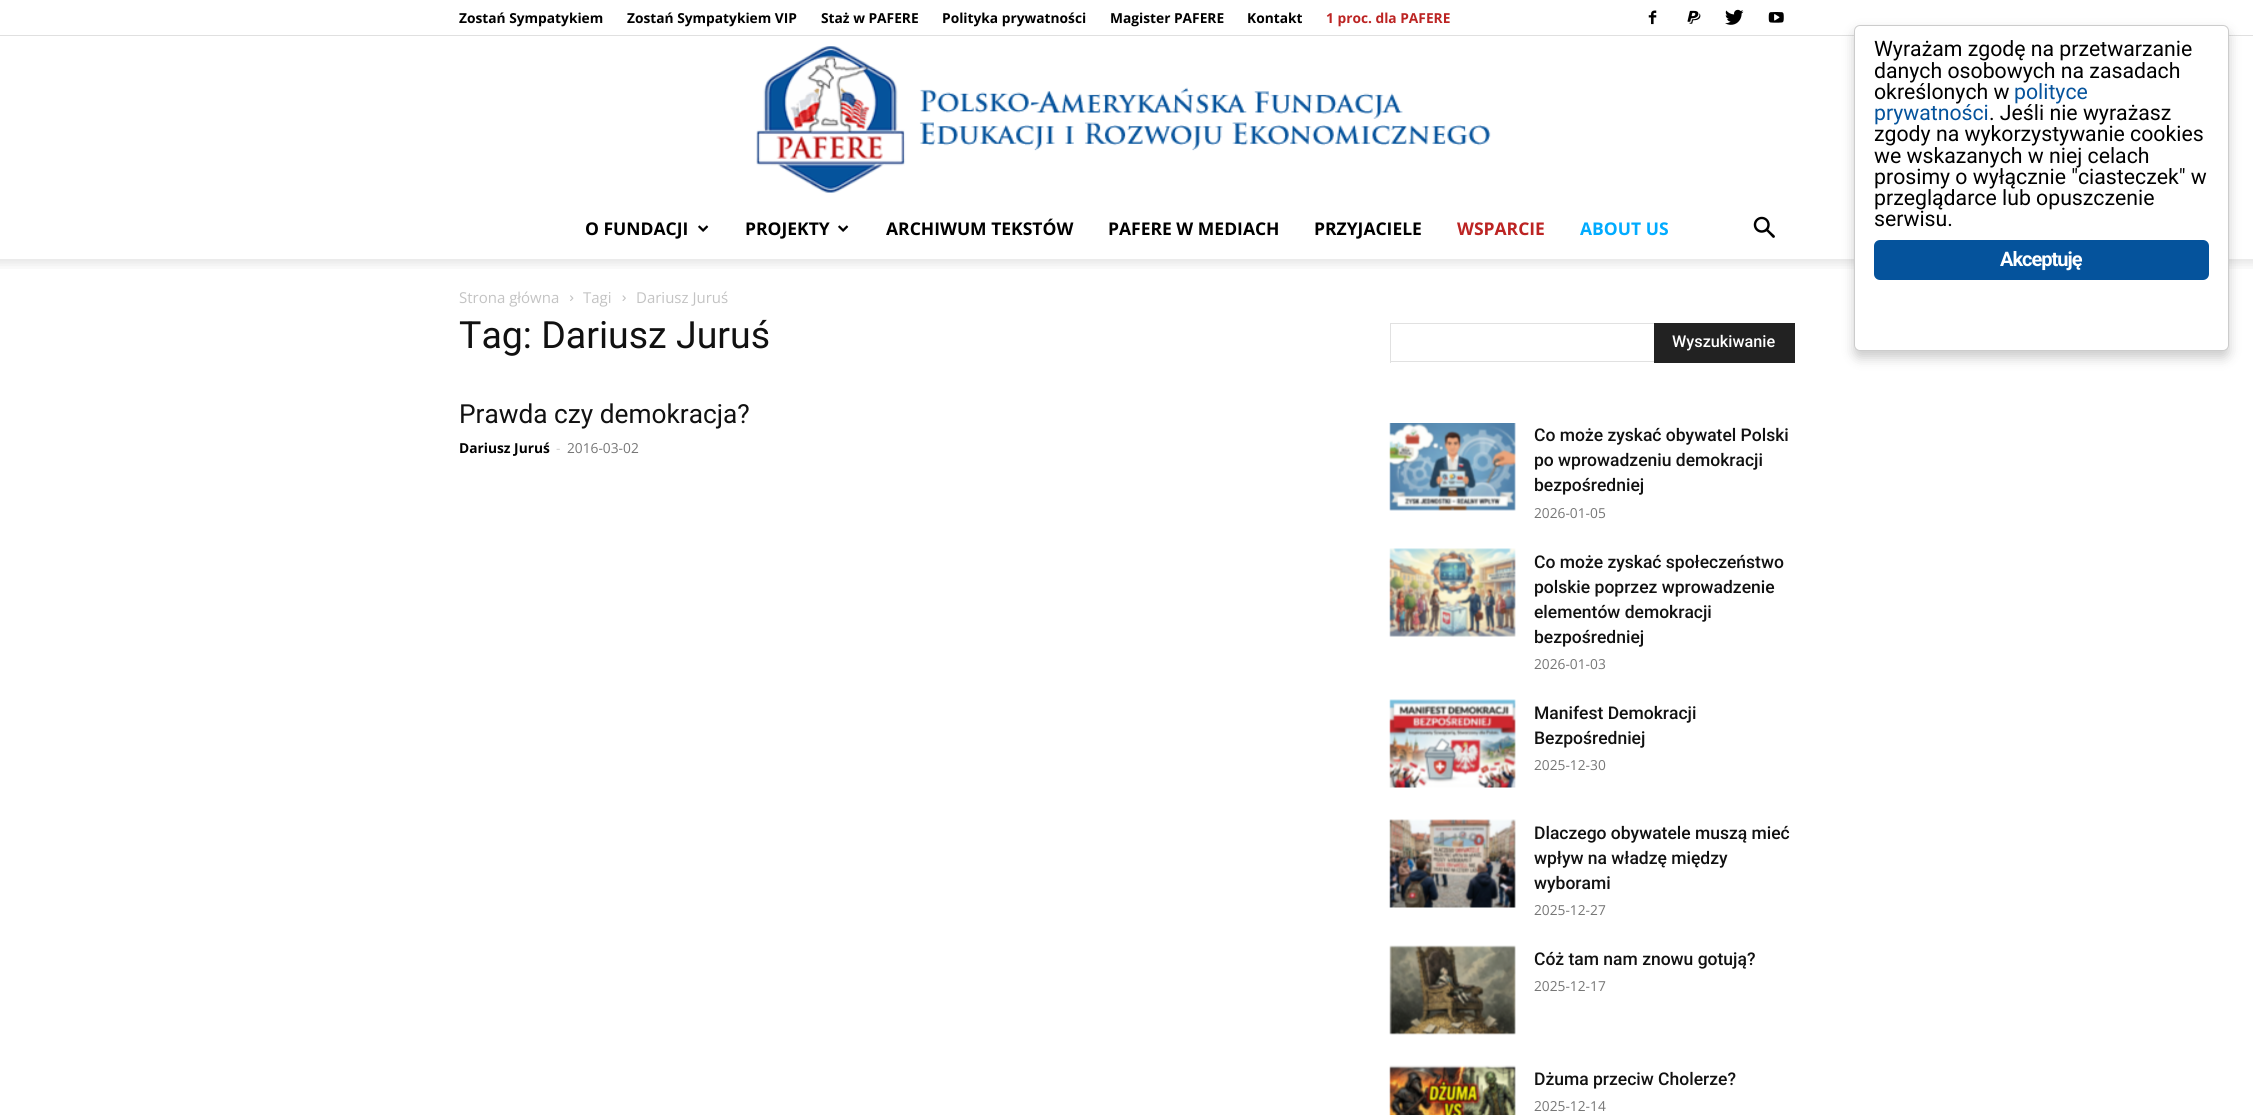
#include <cairo.h>
#include <math.h>
#include <stddef.h>

typedef struct { const char *family; double size; int italic, bold; unsigned color; } style_t;
static cairo_t *ctx;

static void ink(unsigned color) {
    cairo_set_source_rgb(ctx, (color >> 16) / 255.0, (color >> 8 & 255) / 255.0, (color & 255) / 255.0);
}

static void write(double x, double y, const char *s, const style_t *st) {
    cairo_select_font_face(ctx, st->family, st->italic ? CAIRO_FONT_SLANT_ITALIC : CAIRO_FONT_SLANT_NORMAL,
        st->bold ? CAIRO_FONT_WEIGHT_BOLD : CAIRO_FONT_WEIGHT_NORMAL);
    cairo_set_font_size(ctx, st->size);
    ink(st->color);
    cairo_move_to(ctx, x, y);
    cairo_show_text(ctx, s);
}

static void write_spaced(double x, double y, const char *s, double letter, double word) {
    cairo_move_to(ctx, x, y);
    while (*s) {
        char ch[5] = {0};
        int n = 0;
        do ch[n++] = *s++; while ((*s & 0xC0) == 0x80);
        cairo_show_text(ctx, ch);
        cairo_rel_move_to(ctx, letter + word * (*ch == ' '), 0);
    }
}

static void block(double x, double y, double w, double h, unsigned color) {
    ink(color);
    cairo_rectangle(ctx, x, y, w, h);
    cairo_fill(ctx);
}

static void round_path(double x, double y, double w, double h, double r) {
    cairo_new_sub_path(ctx);
    cairo_arc(ctx, x + w - r, y + h - r, r, 0, M_PI / 2);
    cairo_arc(ctx, x + r, y + h - r, r, M_PI / 2, M_PI);
    cairo_arc(ctx, x + r, y + r, r, M_PI, 1.5 * M_PI);
    cairo_arc(ctx, x + w - r, y + r, r, 1.5 * M_PI, 2 * M_PI);
    cairo_close_path(ctx);
}

static void blur_box(double x, double y, double w, double h, double r, double blur, double alpha) {
    cairo_push_group_with_content(ctx, CAIRO_CONTENT_ALPHA);
    cairo_set_operator(ctx, CAIRO_OPERATOR_SOURCE);
    for (int i = 15; i >= -15 && fmin(w, h) + blur * i / 3 > 0; i -= 2) {
        double e = blur * i / 6;
        cairo_set_source_rgba(ctx, 0, 0, 0, alpha * erfc((i - 1) / 8.5) / 2);
        round_path(x - e, y - e, w + 2 * e, h + 2 * e, fmax(0, fmin(r + e + blur * .6, fmin(w, h) / 2 + e)));
        cairo_fill(ctx);
    }
    cairo_pattern_t *soft = cairo_pop_group(ctx);
    cairo_mask(ctx, soft);
    cairo_pattern_destroy(soft);
}

static void paste(const char *path, double x, double y, double w, double h) {
    cairo_surface_t *image = cairo_image_surface_create_from_png(path);
    cairo_save(ctx);
    cairo_set_source_surface(ctx, image, x, y);
    cairo_rectangle(ctx, x, y, w, h);
    cairo_fill(ctx);
    cairo_restore(ctx);
    cairo_surface_destroy(image);
}

static const style_t s1 = {"Open Sans", 13.75, 0, 1, 0x000000};
static const style_t s2 = {"Open Sans", 13.75, 0, 1, 0xbc2423};
static const style_t s3 = {"Open Sans", 17.5, 0, 1, 0x000000};
static const style_t s4 = {"Open Sans", 17.5, 0, 1, 0xbc2423};
static const style_t s5 = {"Open Sans", 17.5, 0, 1, 0x00abff};
static const style_t s6 = {"Open Sans", 15, 0, 0, 0xc3c3c3};
static const style_t s7 = {"Roboto", 37.5, 0, 0, 0x111111};
static const style_t s8 = {"Roboto", 26.25, 0, 0, 0x111111};
static const style_t s9 = {"Open Sans", 13.75, 0, 0, 0xcccccc};
static const style_t s10 = {"Open Sans", 13.75, 0, 0, 0x767676};
static const style_t s11 = {"Roboto Medium", 16.25, 0, 0, 0xffffff};
static const style_t s12 = {"Roboto Medium", 17.5, 0, 0, 0x111111};
static const style_t s13 = {"Roboto", 21.25, 0, 0, 0x000000};
static const style_t s14 = {"Roboto", 21.25, 0, 0, 0x05539c};

int main(void) {
    cairo_surface_t *surface = cairo_image_surface_create(CAIRO_FORMAT_RGB24, 2253, 1115);
    ctx = cairo_create(surface);
    cairo_font_options_t *options = cairo_font_options_create();
    cairo_font_options_set_hint_metrics(options, CAIRO_HINT_METRICS_OFF);
    cairo_font_options_set_hint_style(options, CAIRO_HINT_STYLE_NONE);
    cairo_set_font_options(ctx, options);
    cairo_set_miter_limit(ctx, 4);
    ink(0xffffff);
    cairo_paint(ctx);
    block(0, 35, 2253, 1, 0xe0e0e0);
    write(459, 23, "Zostań Sympatykiem", &s1);
    write(627, 23, "Zostań Sympatykiem VIP", &s1);
    write(821, 23, "Staż w PAFERE", &s1);
    write(942, 23, "Polityka prywatności", &s1);
    write(1110, 23, "Magister PAFERE", &s1);
    write(1247, 23, "Kontakt", &s1);
    write(1326, 23, "1 proc. dla PAFERE", &s2);
    paste("pic1.png", 1648, 10, 9, 15);
    paste("pic2.png", 1687, 10, 14, 14);
    paste("pic3.png", 1725, 9, 19, 16);
    paste("pic4.png", 1768, 12, 16, 11);
    paste("pic5.png", 756, 46, 735, 147);
    write(585, 235, "O FUNDACJI", &s3);
    paste("pic6.png", 698, 225, 11, 7);
    write(745, 235, "PROJEKTY", &s3);
    paste("pic6.png", 838, 225, 11, 7);
    write(886, 235, "ARCHIWUM TEKSTÓW", &s3);
    write(1108, 235, "PAFERE W MEDIACH", &s3);
    write(1314, 235, "PRZYJACIELE", &s3);
    write(1457, 235, "WSPARCIE", &s4);
    write(1580, 235, "ABOUT US", &s5);
    paste("pic7.png", 1753, 216, 22, 22);
    paste("pic8.png", 0, 259, 2253, 10);
    write(459, 303, "Strona główna", &s6);
    paste("pic9.png", 570, 295, 4, 6);
    write(583, 303, "Tagi", &s6);
    paste("pic10.png", 622, 295, 4, 6);
    write(636, 303, "Dariusz Juruś", &s6);
    write(459, 348, "Tag: Dariusz Juruś", &s7);
    write(459, 423, "Prawda czy demokracja?", &s8);
    write(459, 453, "Dariusz Juruś", &s1);
    write(556, 453, "-", &s9);
    write(567, 453, "2016-03-02", &s10);
    block(1390, 323, 264, 1, 0xe1e1e1);
    block(1390, 361, 264, 1, 0xe1e1e1);
    block(1390, 323, 1, 40, 0xe1e1e1);
    block(1654, 323, 141, 40, 0x222222);
    write(1672, 347, "Wyszukiwanie", &s11);
    paste("pic11.png", 1389, 423, 127, 88);
    write(1534, 441, "Co może zyskać obywatel Polski", &s12);
    write(1534, 466, "po wprowadzeniu demokracji", &s12);
    write(1534, 491, "bezpośredniej", &s12);
    write(1534, 518, "2026-01-05", &s10);
    paste("pic12.png", 1389, 548, 127, 89);
    write(1534, 568, "Co może zyskać społeczeństwo", &s12);
    write(1534, 593, "polskie poprzez wprowadzenie", &s12);
    write(1534, 618, "elementów demokracji", &s12);
    write(1534, 643, "bezpośredniej", &s12);
    write(1534, 669, "2026-01-03", &s10);
    paste("pic13.png", 1389, 699, 127, 89);
    write(1534, 719, "Manifest Demokracji", &s12);
    write(1534, 744, "Bezpośredniej", &s12);
    write(1534, 770, "2025-12-30", &s10);
    paste("pic14.png", 1389, 819, 127, 89);
    write(1534, 839, "Dlaczego obywatele muszą mieć", &s12);
    write(1534, 864, "wpływ na władzę między", &s12);
    write(1534, 889, "wyborami", &s12);
    write(1534, 915, "2025-12-27", &s10);
    paste("pic15.png", 1389, 945, 127, 90);
    write(1534, 965, "Cóż tam nam znowu gotują?", &s12);
    write(1534, 991, "2025-12-17", &s10);
    paste("pic16.png", 1389, 1065, 127, 50);
    write(1534, 1085, "Dżuma przeciw Cholerze?", &s12);
    write(1534, 1111, "2025-12-14", &s10);
    ink(0x000000);
    blur_box(1854, 31, 375, 327, 6, 6, 0.2);
    ink(0xffffff);
    round_path(1854.5, 25.5, 374, 325, 5.5);
    cairo_fill_preserve(ctx);
    ink(0xcccccc);
    cairo_set_line_width(ctx, 1);
    cairo_stroke(ctx);
    write(1874, 56, "Wyrażam zgodę na przetwarzanie", &s13);
    write(1874, 78, "danych osobowych na zasadach", &s13);
    write(1874, 99, "określonych w", &s13);
    write(2014, 99, "polityce", &s14);
    write(1874, 120, "prywatności", &s14);
    write(1989, 120, ". Jeśli nie wyrażasz", &s13);
    write(1874, 141, "zgody na wykorzystywanie cookies", &s13);
    write(1874, 163, "we wskazanych w niej celach", &s13);
    write(1874, 184, "prosimy o wyłącznie \"ciasteczek\" w", &s13);
    write(1874, 205, "przeglądarce lub opuszczenie", &s13);
    write(1874, 226, "serwisu.", &s13);
    ink(0x05539c);
    round_path(1874, 240, 335, 40, 6);
    cairo_fill(ctx);
    cairo_select_font_face(ctx, "Roboto", CAIRO_FONT_SLANT_NORMAL, CAIRO_FONT_WEIGHT_BOLD);
    cairo_set_font_size(ctx, 20);
    ink(0xffffff);
    write_spaced(2000, 266, "Akceptuję", -1, 0);
    cairo_surface_write_to_png(surface, "screenshot.png");
    cairo_font_options_destroy(options);
    cairo_destroy(ctx);
    cairo_surface_destroy(surface);
    return 0;
}
